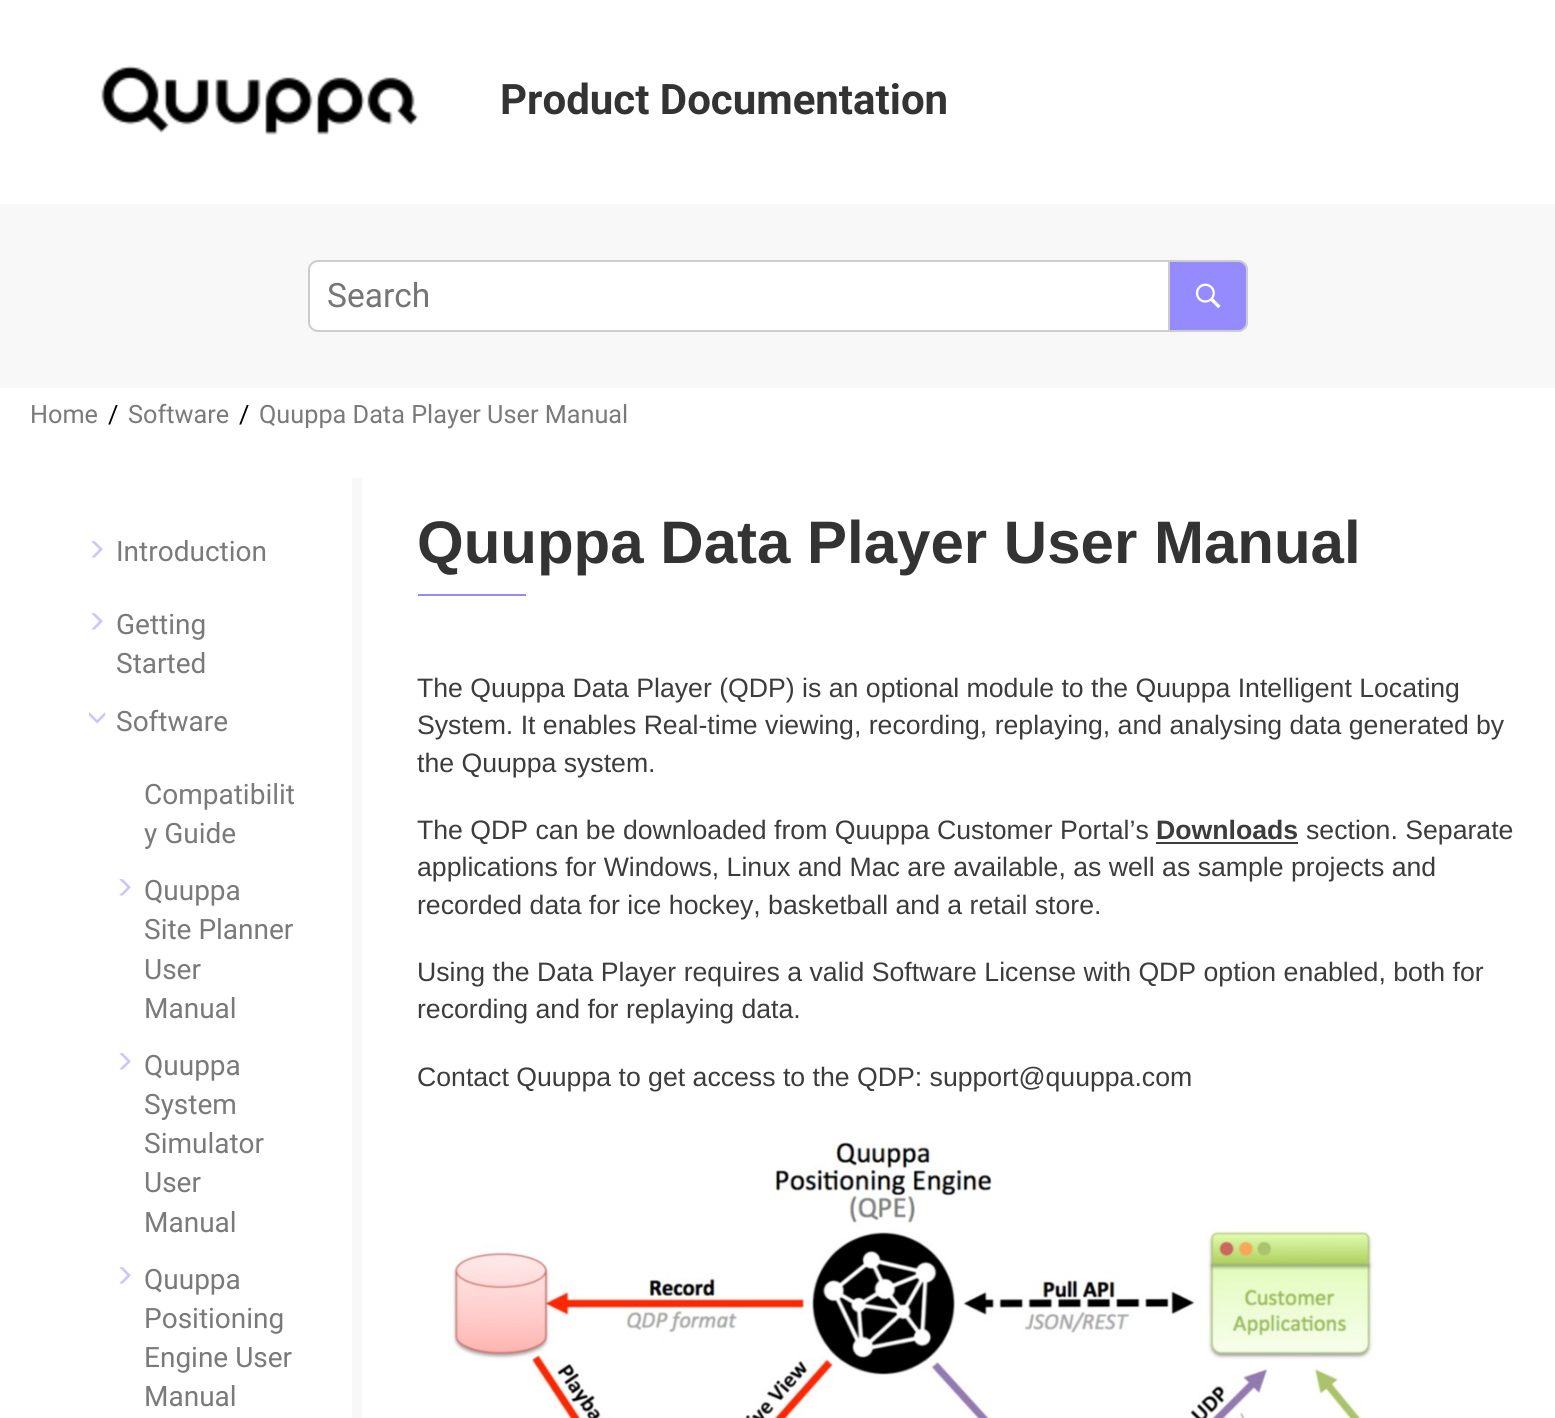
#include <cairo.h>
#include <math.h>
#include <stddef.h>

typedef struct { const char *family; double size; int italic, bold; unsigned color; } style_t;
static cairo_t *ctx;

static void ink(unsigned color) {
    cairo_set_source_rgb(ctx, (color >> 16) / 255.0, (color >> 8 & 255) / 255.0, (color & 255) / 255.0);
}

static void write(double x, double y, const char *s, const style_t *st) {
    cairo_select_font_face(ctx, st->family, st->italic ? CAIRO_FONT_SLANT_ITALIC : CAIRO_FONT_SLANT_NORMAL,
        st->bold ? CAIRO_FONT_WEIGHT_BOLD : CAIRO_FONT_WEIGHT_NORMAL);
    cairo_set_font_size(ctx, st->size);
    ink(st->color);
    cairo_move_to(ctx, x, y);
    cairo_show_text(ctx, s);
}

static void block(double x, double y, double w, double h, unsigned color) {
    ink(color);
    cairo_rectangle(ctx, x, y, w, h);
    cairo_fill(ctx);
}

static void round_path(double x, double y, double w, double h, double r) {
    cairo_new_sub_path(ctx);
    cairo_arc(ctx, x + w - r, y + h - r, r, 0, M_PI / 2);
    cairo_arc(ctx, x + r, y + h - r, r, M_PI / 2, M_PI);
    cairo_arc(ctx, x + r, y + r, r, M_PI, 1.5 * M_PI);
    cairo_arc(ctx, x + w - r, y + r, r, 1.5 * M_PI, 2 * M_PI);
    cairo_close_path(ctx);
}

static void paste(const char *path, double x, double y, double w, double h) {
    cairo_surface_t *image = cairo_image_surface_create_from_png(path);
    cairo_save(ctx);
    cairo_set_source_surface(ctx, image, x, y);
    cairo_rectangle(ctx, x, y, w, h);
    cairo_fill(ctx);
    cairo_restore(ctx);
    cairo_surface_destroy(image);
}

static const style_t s1 = {"Roboto", 42, 0, 1, 0x333333};
static const style_t s2 = {"Roboto", 33.5, 0, 0, 0x757575};
static const style_t s3 = {"Roboto", 25.25, 0, 0, 0x7b7a7a};
static const style_t s4 = {"Roboto", 25.25, 0, 0, 0x000000};
static const style_t s5 = {"Roboto", 28, 0, 0, 0x7b7a7a};
static const style_t s6 = {"Liberation Sans", 60, 0, 1, 0x333333};
static const style_t s7 = {"Liberation Sans", 26.65, 0, 0, 0x3c3c3c};
static const style_t s8 = {"Liberation Sans", 26.65, 0, 1, 0x3c3c3c};

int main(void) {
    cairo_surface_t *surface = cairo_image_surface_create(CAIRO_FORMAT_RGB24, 1555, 1418);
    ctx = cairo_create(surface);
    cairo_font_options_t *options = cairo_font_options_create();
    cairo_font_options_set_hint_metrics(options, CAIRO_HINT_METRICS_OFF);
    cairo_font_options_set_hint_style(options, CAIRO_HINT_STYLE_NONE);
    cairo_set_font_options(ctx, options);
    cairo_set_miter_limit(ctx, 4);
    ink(0xffffff);
    cairo_paint(ctx);
    paste("pic1.png", 101, 65, 318, 70);
    write(500, 114, "Product Documentation", &s1);
    block(0, 204, 1555, 184, 0xf8f8f8);
    ink(0xffffff);
    round_path(309, 261, 938, 70, 9);
    cairo_fill_preserve(ctx);
    ink(0xcccccc);
    cairo_stroke(ctx);
    write(327, 307, "Search", &s2);
    ink(0x958bff);
    cairo_new_path(ctx);
    cairo_move_to(ctx, 1169, 261);
    cairo_line_to(ctx, 1238, 261);
    cairo_curve_to(ctx, 1243, 261, 1247, 265, 1247, 270);
    cairo_line_to(ctx, 1247, 322);
    cairo_curve_to(ctx, 1247, 327, 1243, 331, 1238, 331);
    cairo_line_to(ctx, 1169, 331);
    cairo_close_path(ctx);
    cairo_fill_preserve(ctx);
    ink(0xcccccc);
    cairo_stroke(ctx);
    paste("pic2.png", 1195, 283, 26, 26);
    write(30, 423, "Home", &s3);
    write(108, 423, "/", &s4);
    write(128, 423, "Software", &s3);
    write(239, 423, "/", &s4);
    write(259, 423, "Quuppa Data Player User Manual", &s3);
    block(352, 478, 10, 940, 0xf8f8f8);
    paste("pic3.png", 91, 541, 12, 17);
    write(116, 561, "Introduction", &s5);
    paste("pic3.png", 91, 613, 12, 17);
    write(116, 634, "Getting", &s5);
    write(116, 673, "Started", &s5);
    paste("pic4.png", 89, 712, 17, 12);
    write(116, 731, "Software", &s5);
    write(144, 804, "Compatibilit", &s5);
    write(144, 843, "y Guide", &s5);
    paste("pic3.png", 119, 879, 12, 17);
    write(144, 900, "Quuppa", &s5);
    write(144, 939, "Site Planner", &s5);
    write(144, 979, "User", &s5);
    write(144, 1018, "Manual", &s5);
    paste("pic3.png", 119, 1053, 12, 17);
    write(144, 1075, "Quuppa", &s5);
    write(144, 1114, "System", &s5);
    write(144, 1153, "Simulator", &s5);
    write(144, 1192, "User", &s5);
    write(144, 1232, "Manual", &s5);
    paste("pic3.png", 119, 1267, 12, 17);
    write(144, 1289, "Quuppa", &s5);
    write(144, 1328, "Positioning", &s5);
    write(144, 1367, "Engine User", &s5);
    write(144, 1406, "Manual", &s5);
    write(417, 563, "Quuppa Data Player User Manual", &s6);
    block(418, 594, 108, 2, 0x958bff);
    write(417, 697, "The Quuppa Data Player (QDP) is an optional module to the Quuppa Intelligent Locating", &s7);
    write(417, 734, "System. It enables Real-time viewing, recording, replaying, and analysing data generated", &s7);
    write(1476, 734, "by", &s7);
    write(417, 772, "the Quuppa system.", &s7);
    write(417, 839, "The QDP can be downloaded from Quuppa Customer Portal’s", &s7);
    write(1156, 839, "Downloads", &s8);
    block(1156, 842, 142, 2, 0x3c3c3c);
    write(1306, 839, "section. Separate", &s7);
    write(417, 876, "applications for Windows, Linux and Mac are available, as well as sample projects and", &s7);
    write(417, 914, "recorded data for ice hockey, basketball and a retail store.", &s7);
    write(417, 981, "Using the Data Player requires a valid Software License with QDP option enabled, both for", &s7);
    write(417, 1018, "recording and for replaying data.", &s7);
    write(417, 1086, "Contact Quuppa to get access to the QDP: support@quuppa.com", &s7);
    paste("pic5.png", 447, 1142, 930, 276);
    cairo_surface_write_to_png(surface, "screenshot.png");
    cairo_font_options_destroy(options);
    cairo_destroy(ctx);
    cairo_surface_destroy(surface);
    return 0;
}
